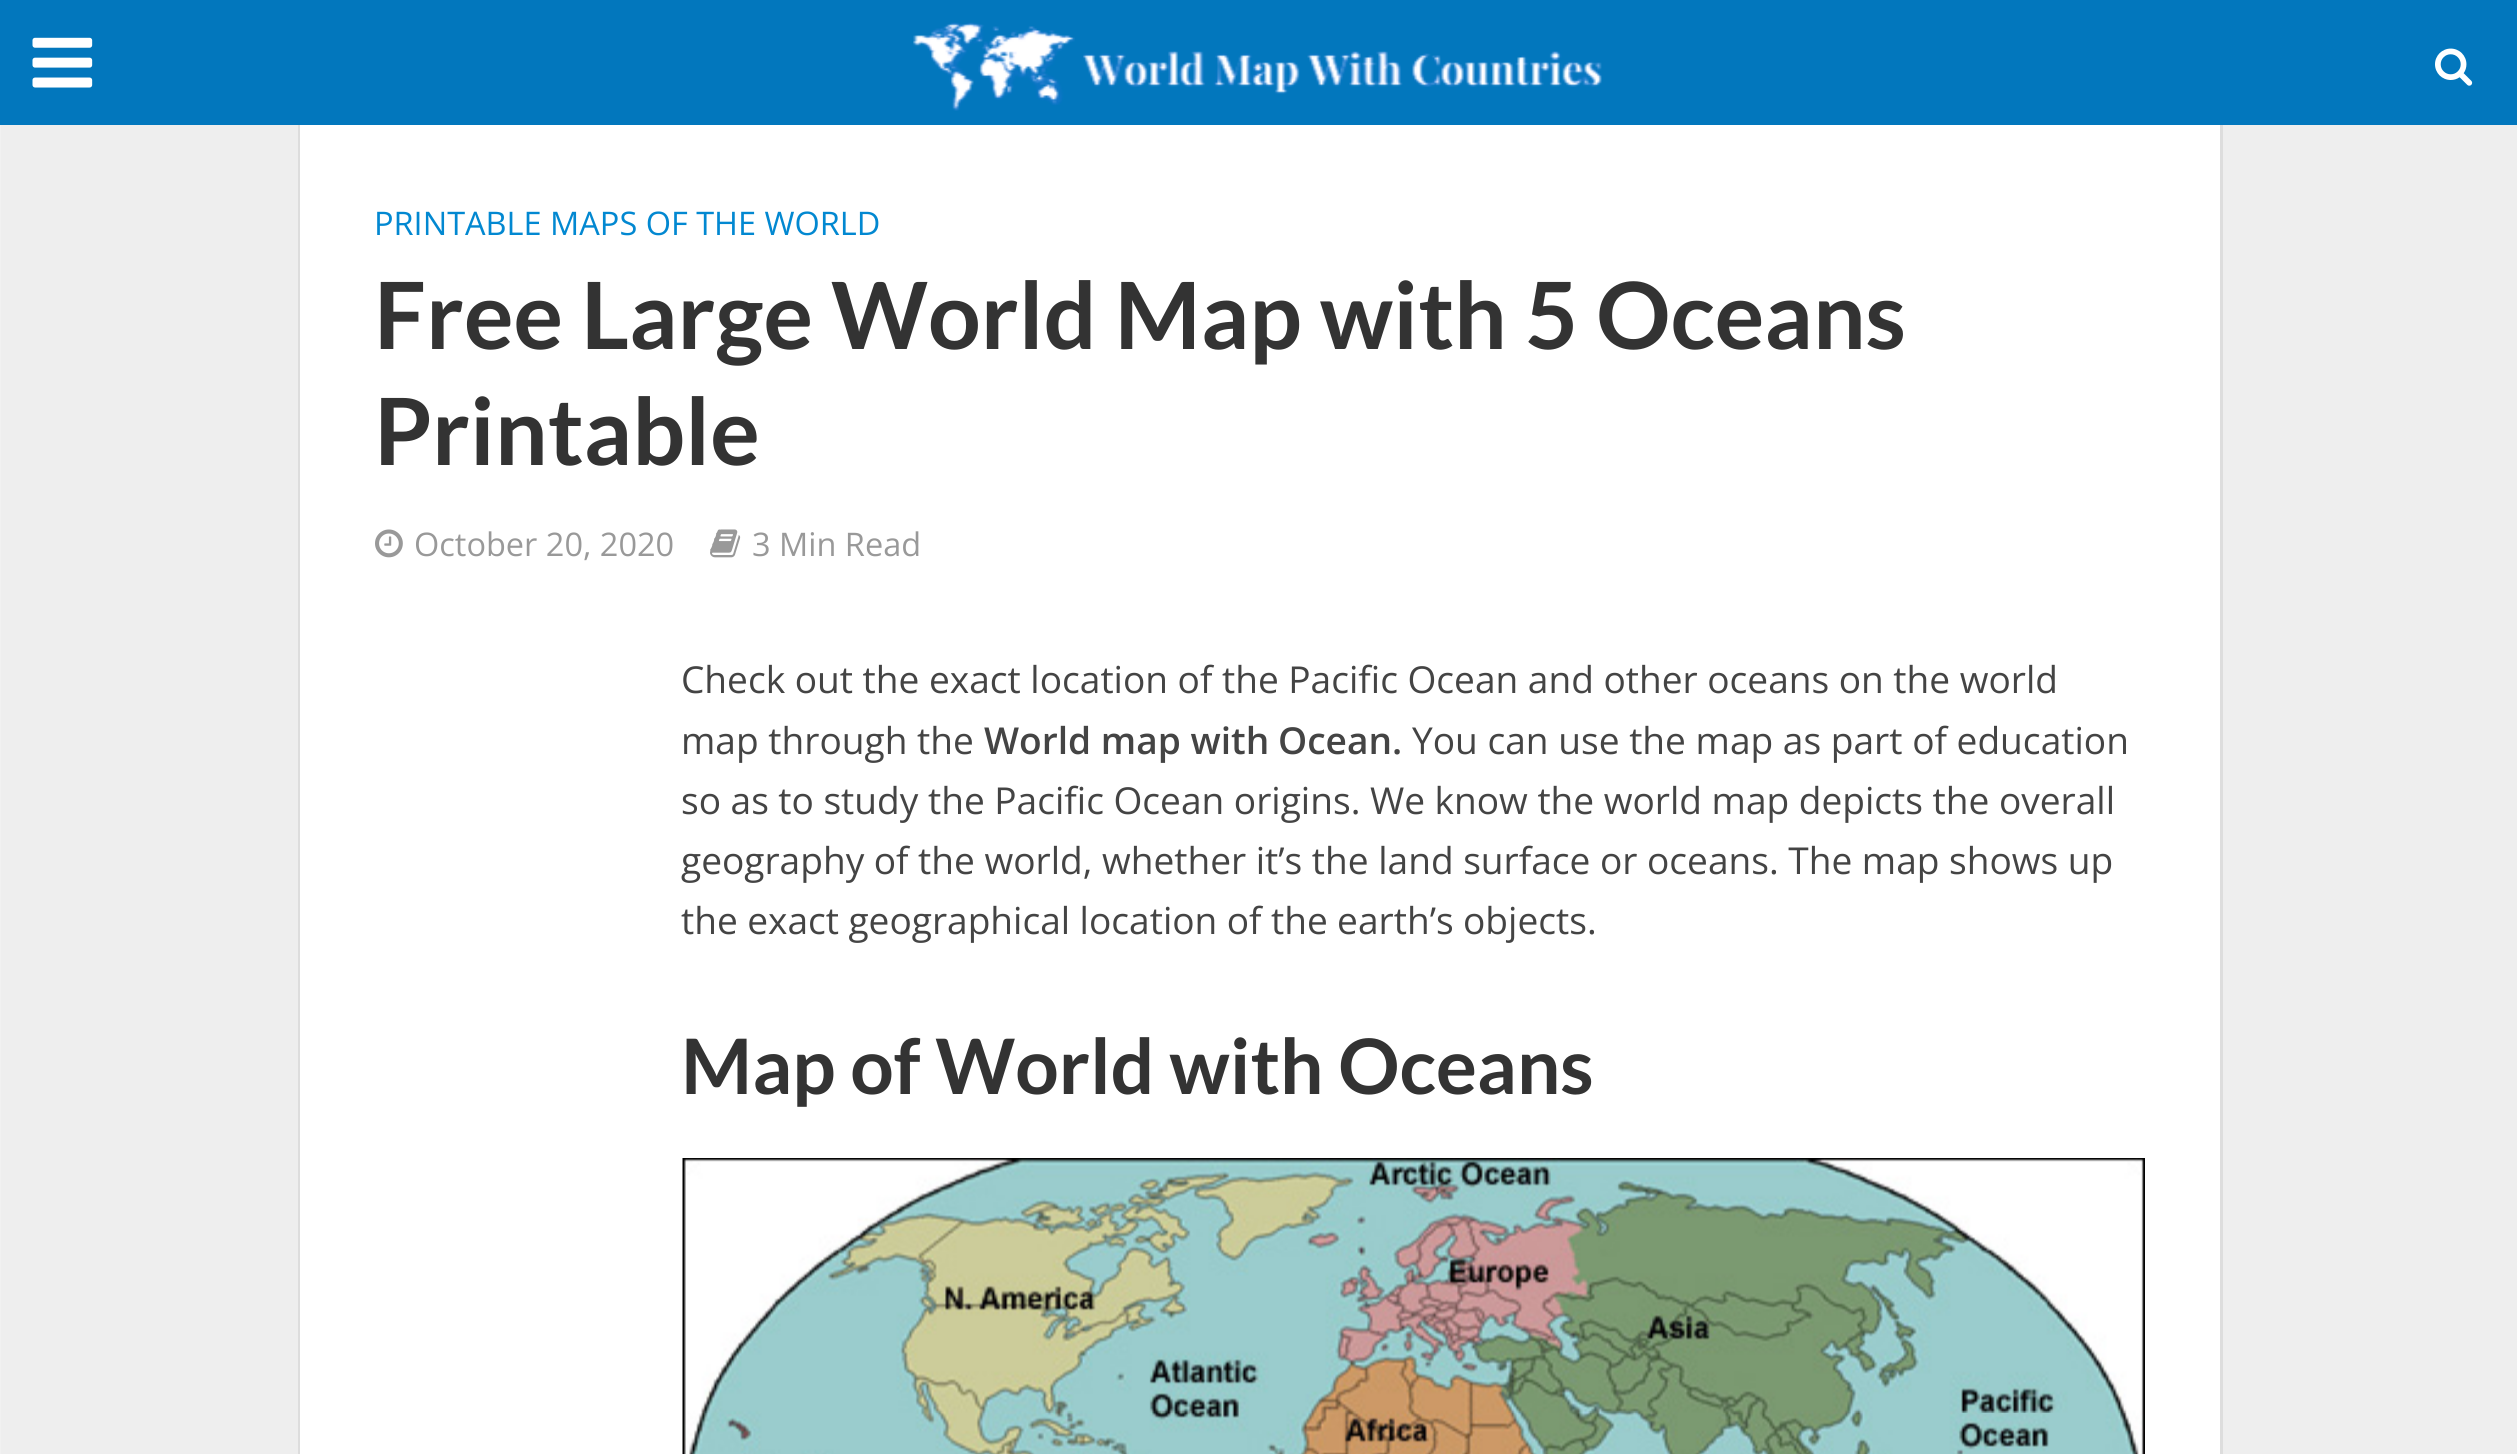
#include <cairo.h>
#include <math.h>
#include <stddef.h>

typedef struct { const char *family; double size; int italic, bold; unsigned color; } style_t;
static cairo_t *ctx;

static void ink(unsigned color) {
    cairo_set_source_rgb(ctx, (color >> 16) / 255.0, (color >> 8 & 255) / 255.0, (color & 255) / 255.0);
}

static void write(double x, double y, const char *s, const style_t *st) {
    cairo_select_font_face(ctx, st->family, st->italic ? CAIRO_FONT_SLANT_ITALIC : CAIRO_FONT_SLANT_NORMAL,
        st->bold ? CAIRO_FONT_WEIGHT_BOLD : CAIRO_FONT_WEIGHT_NORMAL);
    cairo_set_font_size(ctx, st->size);
    ink(st->color);
    cairo_move_to(ctx, x, y);
    cairo_show_text(ctx, s);
}

static void write_spaced(double x, double y, const char *s, double letter, double word) {
    cairo_move_to(ctx, x, y);
    while (*s) {
        char ch[5] = {0};
        int n = 0;
        do ch[n++] = *s++; while ((*s & 0xC0) == 0x80);
        cairo_show_text(ctx, ch);
        cairo_rel_move_to(ctx, letter + word * (*ch == ' '), 0);
    }
}

static void block(double x, double y, double w, double h, unsigned color) {
    ink(color);
    cairo_rectangle(ctx, x, y, w, h);
    cairo_fill(ctx);
}

static void paste(const char *path, double x, double y, double w, double h) {
    cairo_surface_t *image = cairo_image_surface_create_from_png(path);
    cairo_save(ctx);
    cairo_set_source_surface(ctx, image, x, y);
    cairo_rectangle(ctx, x, y, w, h);
    cairo_fill(ctx);
    cairo_restore(ctx);
    cairo_surface_destroy(image);
}

static const style_t s1 = {"Open Sans", 32.5, 0, 0, 0x0288d1};
static const style_t s2 = {"Lato", 92.75, 0, 1, 0x333333};
static const style_t s3 = {"Open Sans", 32.5, 0, 0, 0x999999};
static const style_t s4 = {"Open Sans", 37.1, 0, 0, 0x444444};
static const style_t s5 = {"Open Sans SemiBold", 37.1, 0, 0, 0x444444};
static const style_t s6 = {"Lato", 76.5, 0, 1, 0x333333};

int main(void) {
    cairo_surface_t *surface = cairo_image_surface_create(CAIRO_FORMAT_RGB24, 2517, 1454);
    ctx = cairo_create(surface);
    cairo_font_options_t *options = cairo_font_options_create();
    cairo_font_options_set_hint_metrics(options, CAIRO_HINT_METRICS_OFF);
    cairo_font_options_set_hint_style(options, CAIRO_HINT_STYLE_NONE);
    cairo_set_font_options(ctx, options);
    cairo_set_miter_limit(ctx, 4);
    ink(0xeeeeee);
    cairo_paint(ctx);
    cairo_rectangle(ctx, 299.5, 124.5, 1922, 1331);
    ink(0xdddddd);
    cairo_set_line_width(ctx, 3);
    cairo_stroke(ctx);
    block(0, 0, 2517, 125, 0x0277bd);
    paste("pic1.png", 32, 37, 61, 51);
    paste("pic2.png", 913, 22, 689, 89);
    paste("pic3.png", 2435, 48, 38, 38);
    block(0, 125, 1, 1329, 0xf1f1f1);
    block(300, 125, 1920, 1329, 0xffffff);
    write(374, 235, "PRINTABLE MAPS OF THE WORLD", &s1);
    write(374, 349, "Free Large World Map with 5 Oceans", &s2);
    write(374, 465, "Printable", &s2);
    paste("pic4.png", 375, 529, 28, 29);
    write(414, 556, "October 20, 2020", &s3);
    paste("pic5.png", 710, 529, 31, 29);
    write(752, 556, "3 Min Read", &s3);
    cairo_set_font_size(ctx, 37.1);
    ink(0x444444);
    write_spaced(681, 693, "Check out the exact location of the Pacific Ocean and other oceans on the world", 0, -0.1);
    write(681, 754, "map through the", &s4);
    write(984, 754, "World map with", &s5);
    write(1278, 754, "Ocean.", &s5);
    write(1412, 754, "You can use the map as part of education", &s4);
    write_spaced(681, 814, "so as to study the Pacific Ocean origins. We know the world map depicts the overall", 0, -0.1);
    write_spaced(681, 874, "geography of the world, whether it’s the land surface or oceans. The map shows up", 0, -0.1);
    write_spaced(681, 934, "the exact geographical location of the earth’s objects.", 0, -0.25);
    write(681, 1094, "Map of World with Oceans", &s6);
    paste("pic6.png", 682, 1158, 1463, 296);
    cairo_surface_write_to_png(surface, "screenshot.png");
    cairo_font_options_destroy(options);
    cairo_destroy(ctx);
    cairo_surface_destroy(surface);
    return 0;
}
